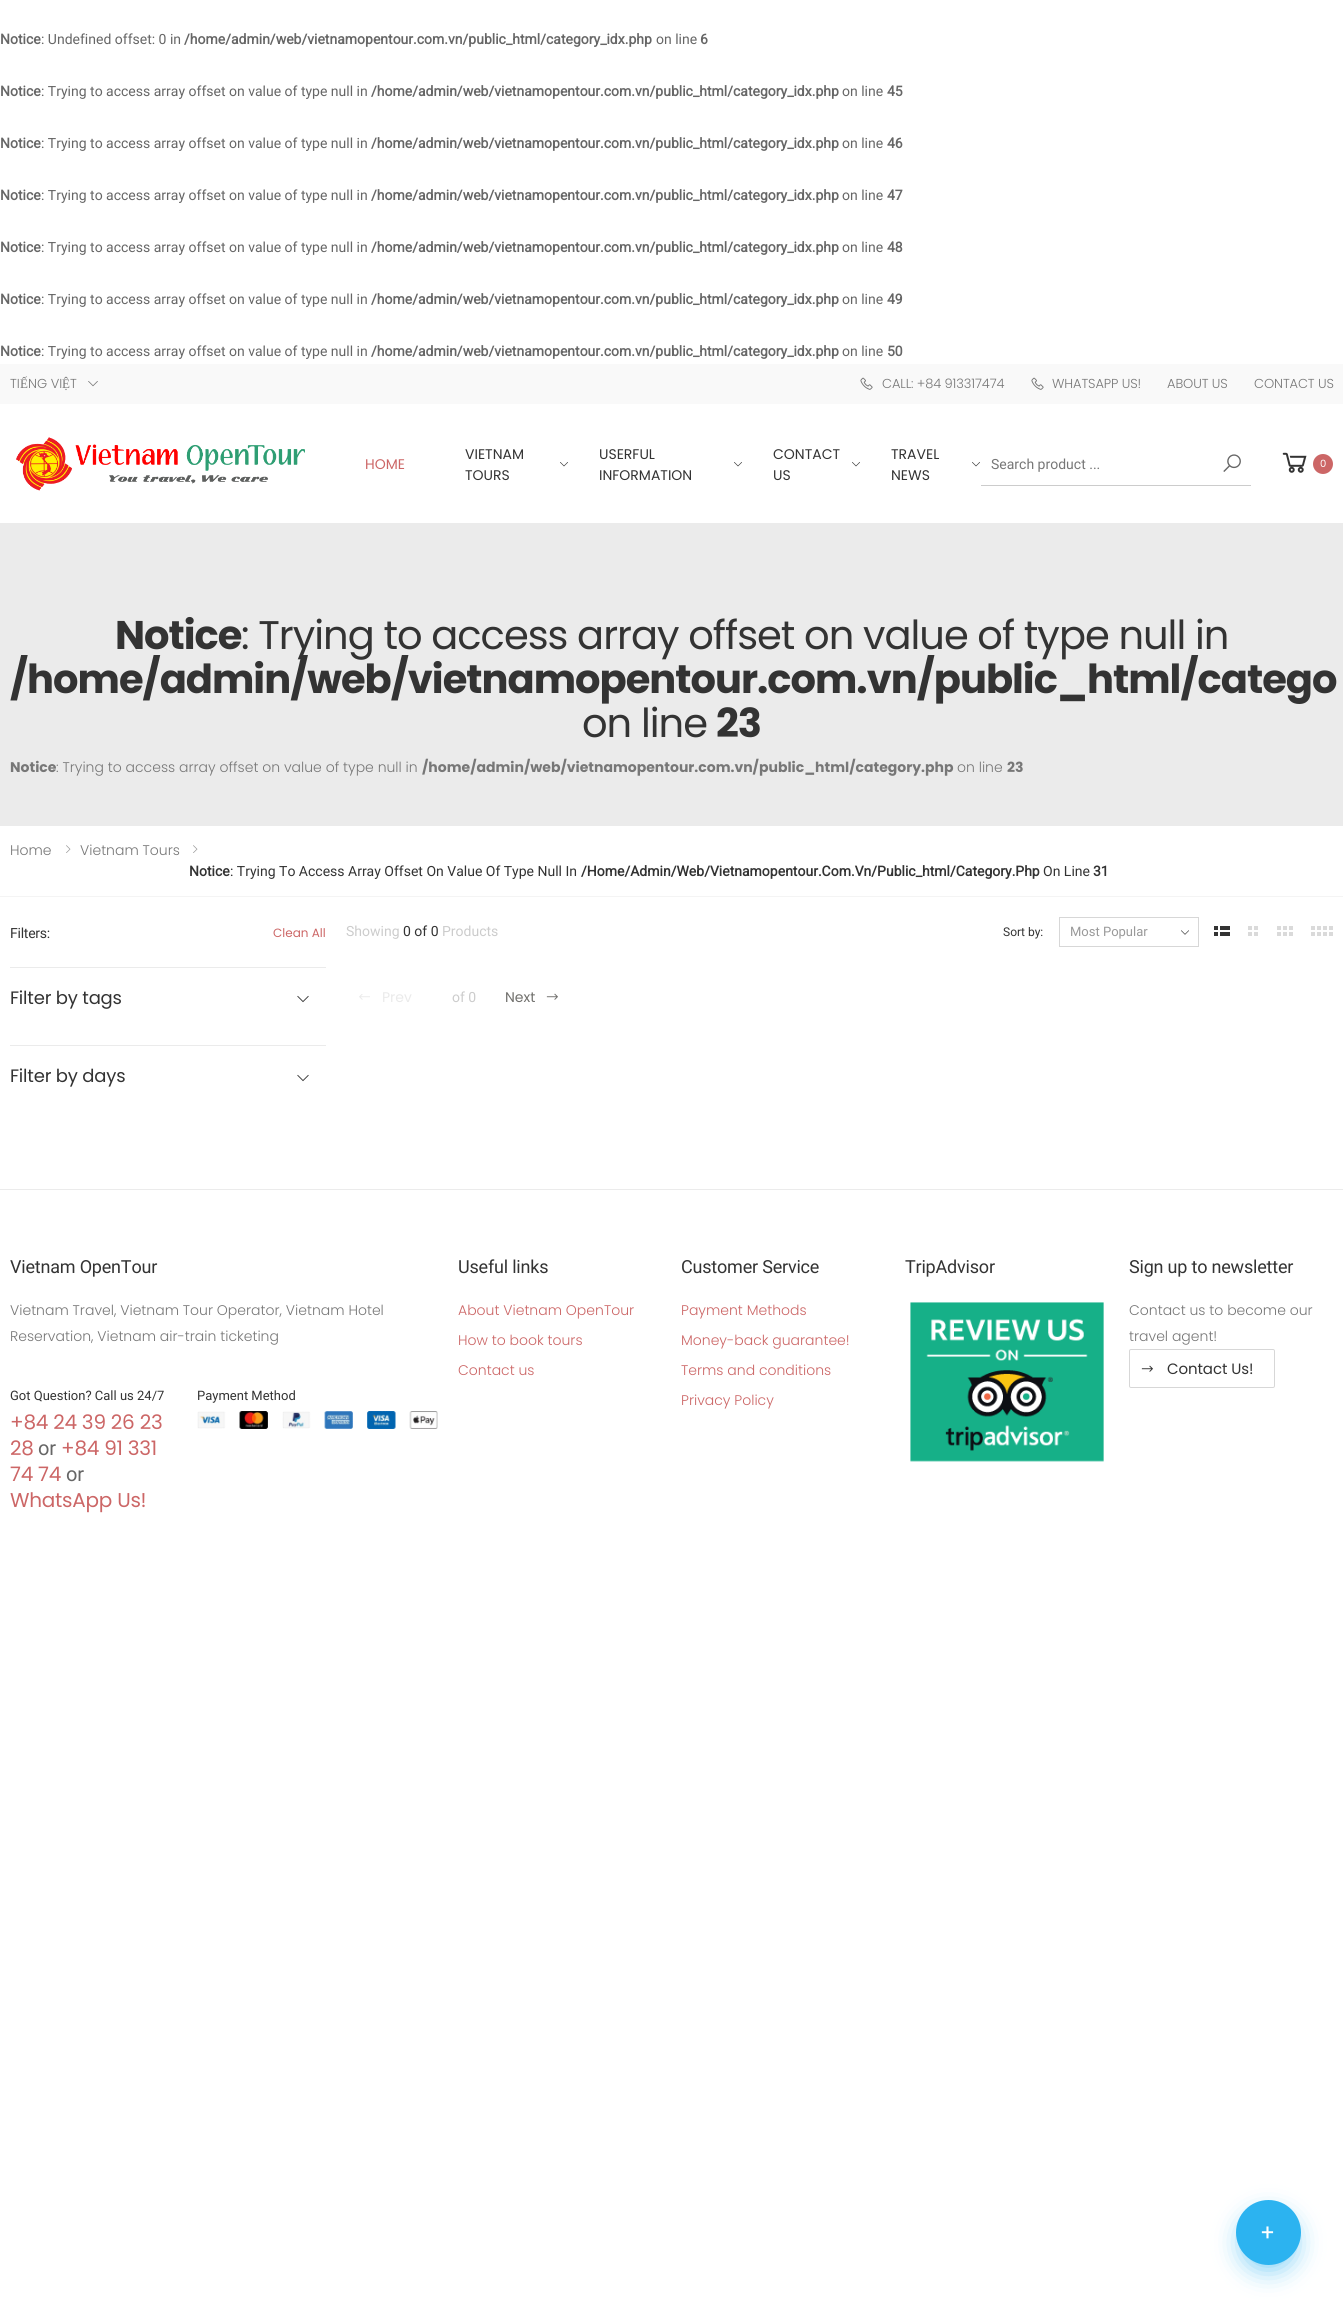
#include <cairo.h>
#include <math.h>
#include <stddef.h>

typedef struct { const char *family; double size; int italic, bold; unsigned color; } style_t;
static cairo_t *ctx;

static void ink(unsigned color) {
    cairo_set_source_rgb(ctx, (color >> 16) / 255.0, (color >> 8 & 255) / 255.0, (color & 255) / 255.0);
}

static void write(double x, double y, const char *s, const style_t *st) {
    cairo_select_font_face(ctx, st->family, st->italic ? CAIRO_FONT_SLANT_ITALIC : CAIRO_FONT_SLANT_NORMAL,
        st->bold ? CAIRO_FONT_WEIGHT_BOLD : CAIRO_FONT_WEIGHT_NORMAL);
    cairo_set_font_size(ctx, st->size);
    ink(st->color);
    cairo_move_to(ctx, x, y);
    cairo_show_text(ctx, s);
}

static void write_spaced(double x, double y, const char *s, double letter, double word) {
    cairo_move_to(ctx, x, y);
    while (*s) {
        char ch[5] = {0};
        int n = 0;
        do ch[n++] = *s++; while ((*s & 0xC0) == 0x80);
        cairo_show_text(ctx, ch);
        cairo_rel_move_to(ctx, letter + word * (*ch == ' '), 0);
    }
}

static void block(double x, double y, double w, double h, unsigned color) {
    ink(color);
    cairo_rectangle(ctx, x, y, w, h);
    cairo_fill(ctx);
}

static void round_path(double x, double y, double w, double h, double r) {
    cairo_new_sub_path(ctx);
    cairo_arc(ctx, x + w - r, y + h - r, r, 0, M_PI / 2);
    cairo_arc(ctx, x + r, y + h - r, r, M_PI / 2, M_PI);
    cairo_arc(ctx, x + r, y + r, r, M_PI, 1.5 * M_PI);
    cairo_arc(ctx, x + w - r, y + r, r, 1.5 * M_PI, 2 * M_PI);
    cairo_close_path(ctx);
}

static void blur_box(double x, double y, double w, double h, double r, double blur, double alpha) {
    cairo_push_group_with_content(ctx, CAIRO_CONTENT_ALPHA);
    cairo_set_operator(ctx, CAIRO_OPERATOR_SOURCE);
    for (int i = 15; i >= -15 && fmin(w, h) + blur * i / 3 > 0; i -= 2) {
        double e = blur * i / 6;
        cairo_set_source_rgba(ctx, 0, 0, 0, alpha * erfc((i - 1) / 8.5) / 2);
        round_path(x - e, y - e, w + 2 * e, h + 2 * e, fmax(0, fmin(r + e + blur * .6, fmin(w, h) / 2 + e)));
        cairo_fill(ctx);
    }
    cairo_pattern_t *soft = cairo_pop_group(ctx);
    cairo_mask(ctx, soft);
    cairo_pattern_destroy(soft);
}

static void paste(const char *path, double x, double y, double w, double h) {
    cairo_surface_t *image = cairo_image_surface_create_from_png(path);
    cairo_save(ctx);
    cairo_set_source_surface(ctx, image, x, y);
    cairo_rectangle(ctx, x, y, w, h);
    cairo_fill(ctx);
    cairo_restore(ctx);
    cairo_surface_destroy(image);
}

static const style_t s1 = {"Roboto", 14, 0, 1, 0x666666};
static const style_t s2 = {"Roboto", 14, 0, 0, 0x666666};
static const style_t s3 = {"Poppins Light", 13, 0, 0, 0x777777};
static const style_t s4 = {"Liberation Serif", 13, 0, 0, 0x777777};
static const style_t s5 = {"Poppins", 14, 0, 0, 0xcc6666};
static const style_t s6 = {"Poppins", 14, 0, 0, 0x333333};
static const style_t s7 = {"Roboto", 14, 0, 0, 0x777777};
static const style_t s8 = {"Poppins", 10, 0, 0, 0xffffff};
static const style_t s9 = {"Poppins", 14, 0, 1, 0x777777};
static const style_t s10 = {"Poppins Light", 14, 0, 0, 0x777777};
static const style_t s11 = {"Roboto", 14, 0, 1, 0x333333};
static const style_t s12 = {"Roboto", 14, 0, 0, 0x333333};
static const style_t s13 = {"Poppins", 12, 0, 0, 0xcc6666};
static const style_t s14 = {"Roboto", 14, 0, 0, 0xcccccc};
static const style_t s15 = {"Roboto", 12, 0, 0, 0x333333};
static const style_t s16 = {"Roboto", 13, 0, 0, 0x999999};
static const style_t s17 = {"Poppins", 14, 0, 0, 0xeaeaea};
static const style_t s18 = {"Poppins", 14, 0, 0, 0x706f6c};
static const style_t s19 = {"Roboto", 13, 0, 0, 0x333333};
static const style_t s20 = {"Poppins Light", 14, 0, 0, 0xcc6666};
static const style_t s21 = {"Roboto", 23, 0, 0, 0xffffff};

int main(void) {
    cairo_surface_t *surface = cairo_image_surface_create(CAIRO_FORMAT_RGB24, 1343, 2300);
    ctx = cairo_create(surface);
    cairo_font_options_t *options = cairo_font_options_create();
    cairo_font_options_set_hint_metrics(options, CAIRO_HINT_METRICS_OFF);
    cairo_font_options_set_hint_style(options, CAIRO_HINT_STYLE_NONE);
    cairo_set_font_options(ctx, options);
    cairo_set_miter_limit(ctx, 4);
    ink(0xffffff);
    cairo_paint(ctx);
    write(0, 44, "Notice", &s1);
    write(41, 44, ": Undefined offset: 0 in", &s2);
    write(184, 44, "/home/admin/web/vietnamopentour.com.vn/public_html/category_idx.php", &s1);
    write(656, 44, "on line", &s2);
    write(700, 44, "6", &s1);
    write(0, 96, "Notice", &s1);
    write(41, 96, ": Trying to access array offset on value of type null in", &s2);
    write(371, 96, "/home/admin/web/vietnamopentour.com.vn/public_html/category_idx.php", &s1);
    write(842, 96, "on line", &s2);
    write(887, 96, "45", &s1);
    write(0, 148, "Notice", &s1);
    write(41, 148, ": Trying to access array offset on value of type null in", &s2);
    write(371, 148, "/home/admin/web/vietnamopentour.com.vn/public_html/category_idx.php", &s1);
    write(842, 148, "on line", &s2);
    write(887, 148, "46", &s1);
    write(0, 200, "Notice", &s1);
    write(41, 200, ": Trying to access array offset on value of type null in", &s2);
    write(371, 200, "/home/admin/web/vietnamopentour.com.vn/public_html/category_idx.php", &s1);
    write(842, 200, "on line", &s2);
    write(887, 200, "47", &s1);
    write(0, 252, "Notice", &s1);
    write(41, 252, ": Trying to access array offset on value of type null in", &s2);
    write(371, 252, "/home/admin/web/vietnamopentour.com.vn/public_html/category_idx.php", &s1);
    write(842, 252, "on line", &s2);
    write(887, 252, "48", &s1);
    write(0, 304, "Notice", &s1);
    write(41, 304, ": Trying to access array offset on value of type null in", &s2);
    write(371, 304, "/home/admin/web/vietnamopentour.com.vn/public_html/category_idx.php", &s1);
    write(842, 304, "on line", &s2);
    write(887, 304, "49", &s1);
    write(0, 356, "Notice", &s1);
    write(41, 356, ": Trying to access array offset on value of type null in", &s2);
    write(371, 356, "/home/admin/web/vietnamopentour.com.vn/public_html/category_idx.php", &s1);
    write(842, 356, "on line", &s2);
    write(887, 356, "50", &s1);
    block(0, 364, 1343, 40, 0xf9f9f9);
    write(10, 388, "TI", &s3);
    write(20, 388, "Ế", &s4);
    write(28, 388, "NG VI", &s3);
    write(62, 388, "Ệ", &s4);
    write(70, 388, "T", &s3);
    paste("pic1.png", 88, 381, 10, 6);
    paste("pic2.png", 860, 377, 13, 13);
    write_spaced(882, 388, "CALL: +84 913317474", -0.1, 0);
    paste("pic2.png", 1031, 377, 13, 13);
    write_spaced(1052, 388, "WHATSAPP US!", -0.1, 0);
    write_spaced(1167, 388, "ABOUT US", -0.1, 0);
    write_spaced(1254, 388, "CONTACT US", -0.1, 0);
    paste("pic3.png", 16, 437, 289, 54);
    write(365, 469, "HOME", &s5);
    write(465, 459, "VIETNAM", &s6);
    paste("pic4.png", 560, 462, 8, 5);
    write(465, 480, "TOURS", &s6);
    write(599, 459, "USERFUL", &s6);
    paste("pic4.png", 734, 462, 8, 5);
    write(599, 480, "INFORMATION", &s6);
    write(773, 459, "CONTACT", &s6);
    paste("pic4.png", 852, 462, 8, 5);
    write(773, 480, "US", &s6);
    write(891, 459, "TRAVEL", &s6);
    paste("pic4.png", 972, 462, 8, 5);
    write(891, 480, "NEWS", &s6);
    block(981, 485, 270, 1, 0xcccccc);
    write(991, 469, "Search product ...", &s7);
    paste("pic5.png", 1223, 454, 18, 18);
    paste("pic6.png", 1282, 452, 25, 21);
    ink(0xcc6666);
    cairo_arc(ctx, 1323, 464, 10, 0, 2 * M_PI);
    cairo_fill(ctx);
    write(1320, 467, "0", &s8);
    block(0, 523, 1343, 303, 0xebebeb);
    cairo_select_font_face(ctx, "Poppins", CAIRO_FONT_SLANT_NORMAL, CAIRO_FONT_WEIGHT_BOLD);
    cairo_set_font_size(ctx, 40);
    ink(0x333333);
    write_spaced(115, 649, "Notice", -1, 0);
    cairo_select_font_face(ctx, "Poppins", CAIRO_FONT_SLANT_NORMAL, CAIRO_FONT_WEIGHT_NORMAL);
    write_spaced(241, 649, ": Trying to access array offset on value of type null in", -1, 0);
    cairo_select_font_face(ctx, "Poppins", CAIRO_FONT_SLANT_NORMAL, CAIRO_FONT_WEIGHT_BOLD);
    write_spaced(10, 693, "/home/admin/web/vietnamopentour.com.vn/public_html/catego", -1, 0);
    cairo_select_font_face(ctx, "Poppins", CAIRO_FONT_SLANT_NORMAL, CAIRO_FONT_WEIGHT_NORMAL);
    write_spaced(582, 737, "on line", -1, 0);
    cairo_select_font_face(ctx, "Poppins", CAIRO_FONT_SLANT_NORMAL, CAIRO_FONT_WEIGHT_BOLD);
    write_spaced(716, 737, "23", -1, 0);
    write(10, 772, "Notice", &s9);
    write(56, 772, ": Trying to access array offset on value of type null in", &s10);
    write(422, 772, "/home/admin/web/vietnamopentour.com.vn/public_html/category.php", &s9);
    write(957, 772, "on line", &s10);
    write(1007, 772, "23", &s9);
    block(0, 896, 1343, 1, 0xf4f4f4);
    write(10, 855, "Home", &s10);
    paste("pic7.png", 66, 845, 5, 8);
    write(80, 855, "Vietnam Tours", &s10);
    paste("pic7.png", 193, 845, 5, 8);
    write(189, 876, "Notice", &s11);
    write(230, 876, ": Trying To Access Array Offset On Value Of Type Null In", &s12);
    write(581, 876, "/Home/Admin/Web/Vietnamopentour.Com.Vn/Public_html/Category.Php", &s11);
    write(1043, 876, "On Line", &s12);
    write(1093, 876, "31", &s11);
    block(10, 967, 316, 1, 0xebebeb);
    cairo_select_font_face(ctx, "Roboto", CAIRO_FONT_SLANT_NORMAL, CAIRO_FONT_WEIGHT_NORMAL);
    ink(0x333333);
    write_spaced(10, 938, "Filters:", -0.25, 0);
    write(273, 937, "Clean All", &s13);
    block(10, 1045, 316, 1, 0xebebeb);
    cairo_set_font_size(ctx, 18);
    ink(0x333333);
    write_spaced(10, 1004, "Filter by tags", -0.2, 0);
    paste("pic8.png", 297, 995, 12, 8);
    write_spaced(10, 1082, "Filter by days", -0.2, 0);
    paste("pic8.png", 297, 1074, 12, 8);
    write(346, 936, "Showing", &s14);
    write(403, 936, "0 of 0", &s12);
    write(442, 936, "Products", &s14);
    write(1003, 936, "Sort by:", &s15);
    cairo_rectangle(ctx, 1059.5, 917.5, 139, 29);
    ink(0xd7d7d7);
    cairo_set_line_width(ctx, 1);
    cairo_stroke(ctx);
    write(1070, 936, "Most Popular", &s16);
    paste("pic9.png", 1181, 930, 8, 5);
    paste("pic10.png", 1214, 926, 16, 10);
    paste("pic11.png", 1248, 926, 10, 10);
    paste("pic12.png", 1277, 926, 16, 10);
    paste("pic13.png", 1311, 926, 22, 10);
    paste("pic14.png", 359, 994, 11, 6);
    write(382, 1002, "Prev", &s17);
    write(452, 1002, "of 0", &s14);
    write(505, 1002, "Next", &s18);
    paste("pic15.png", 546, 993, 12, 7);
    block(0, 1189, 1343, 1, 0xebebeb);
    cairo_select_font_face(ctx, "Roboto", CAIRO_FONT_SLANT_NORMAL, CAIRO_FONT_WEIGHT_NORMAL);
    cairo_set_font_size(ctx, 18);
    ink(0x333333);
    write_spaced(10, 1273, "Vietnam OpenTour", -0.2, 0);
    write(10, 1315, "Vietnam Travel, Vietnam Tour Operator, Vietnam Hotel", &s10);
    write(10, 1341, "Reservation, Vietnam air-train ticketing", &s10);
    write(10, 1400, "Got Question? Call us 24/7", &s19);
    cairo_select_font_face(ctx, "Poppins", CAIRO_FONT_SLANT_NORMAL, CAIRO_FONT_WEIGHT_NORMAL);
    cairo_set_font_size(ctx, 20);
    ink(0xcc6666);
    write_spaced(10, 1429, "+84 24 39 26 23", -0.25, 0);
    write_spaced(10, 1455, "28", -0.25, 0);
    cairo_select_font_face(ctx, "Roboto", CAIRO_FONT_SLANT_NORMAL, CAIRO_FONT_WEIGHT_NORMAL);
    ink(0x666666);
    write_spaced(38, 1455, "or", -0.25, 0);
    cairo_select_font_face(ctx, "Poppins", CAIRO_FONT_SLANT_NORMAL, CAIRO_FONT_WEIGHT_NORMAL);
    ink(0xcc6666);
    write_spaced(61, 1455, "+84 91 331", -0.25, 0);
    write_spaced(10, 1481, "74 74", -0.25, 0);
    cairo_select_font_face(ctx, "Roboto", CAIRO_FONT_SLANT_NORMAL, CAIRO_FONT_WEIGHT_NORMAL);
    ink(0x666666);
    write_spaced(66, 1481, "or", -0.25, 0);
    cairo_select_font_face(ctx, "Poppins", CAIRO_FONT_SLANT_NORMAL, CAIRO_FONT_WEIGHT_NORMAL);
    ink(0xcc6666);
    write_spaced(10, 1507, "WhatsApp Us!", -0.25, 0);
    write(197, 1400, "Payment Method", &s19);
    paste("pic16.png", 197, 1411, 241, 18);
    cairo_set_font_size(ctx, 18);
    write_spaced(458, 1273, "Useful links", -0.2, 0);
    write(458, 1315, "About Vietnam OpenTour", &s20);
    write(458, 1345, "How to book tours", &s20);
    write(458, 1375, "Contact us", &s20);
    cairo_select_font_face(ctx, "Roboto", CAIRO_FONT_SLANT_NORMAL, CAIRO_FONT_WEIGHT_NORMAL);
    cairo_set_font_size(ctx, 18);
    ink(0x333333);
    write_spaced(681, 1273, "Customer Service", -0.2, 0);
    write(681, 1315, "Payment Methods", &s20);
    write(681, 1345, "Money-back guarantee!", &s20);
    write(681, 1375, "Terms and conditions", &s20);
    write(681, 1405, "Privacy Policy", &s20);
    cairo_select_font_face(ctx, "Roboto", CAIRO_FONT_SLANT_NORMAL, CAIRO_FONT_WEIGHT_NORMAL);
    cairo_set_font_size(ctx, 18);
    ink(0x333333);
    write_spaced(905, 1273, "TripAdvisor", -0.2, 0);
    paste("pic17.png", 910, 1302, 194, 160);
    write_spaced(1129, 1273, "Sign up to newsletter", -0.2, 0);
    write(1129, 1315, "Contact us to become our", &s10);
    write(1129, 1341, "travel agent!", &s10);
    round_path(1129.5, 1349.5, 145, 38, 1.5);
    ink(0xd7d7d7);
    cairo_stroke(ctx);
    paste("pic18.png", 1141, 1365, 12, 7);
    cairo_select_font_face(ctx, "Poppins", CAIRO_FONT_SLANT_NORMAL, CAIRO_FONT_WEIGHT_NORMAL);
    cairo_set_font_size(ctx, 15);
    ink(0x333333);
    write_spaced(1167, 1374, "Contact Us!", -0.1, 0);
    ink(0x2cb3f0);
    blur_box(1241, 2215, 55, 55, 27.5, 12.5, 0.6);
    ink(0x2cb3f0);
    cairo_arc(ctx, 1268.5, 2232.5, 32.5, 0, 2 * M_PI);
    cairo_fill(ctx);
    write(1261, 2240, "+", &s21);
    cairo_surface_write_to_png(surface, "screenshot.png");
    cairo_font_options_destroy(options);
    cairo_destroy(ctx);
    cairo_surface_destroy(surface);
    return 0;
}
